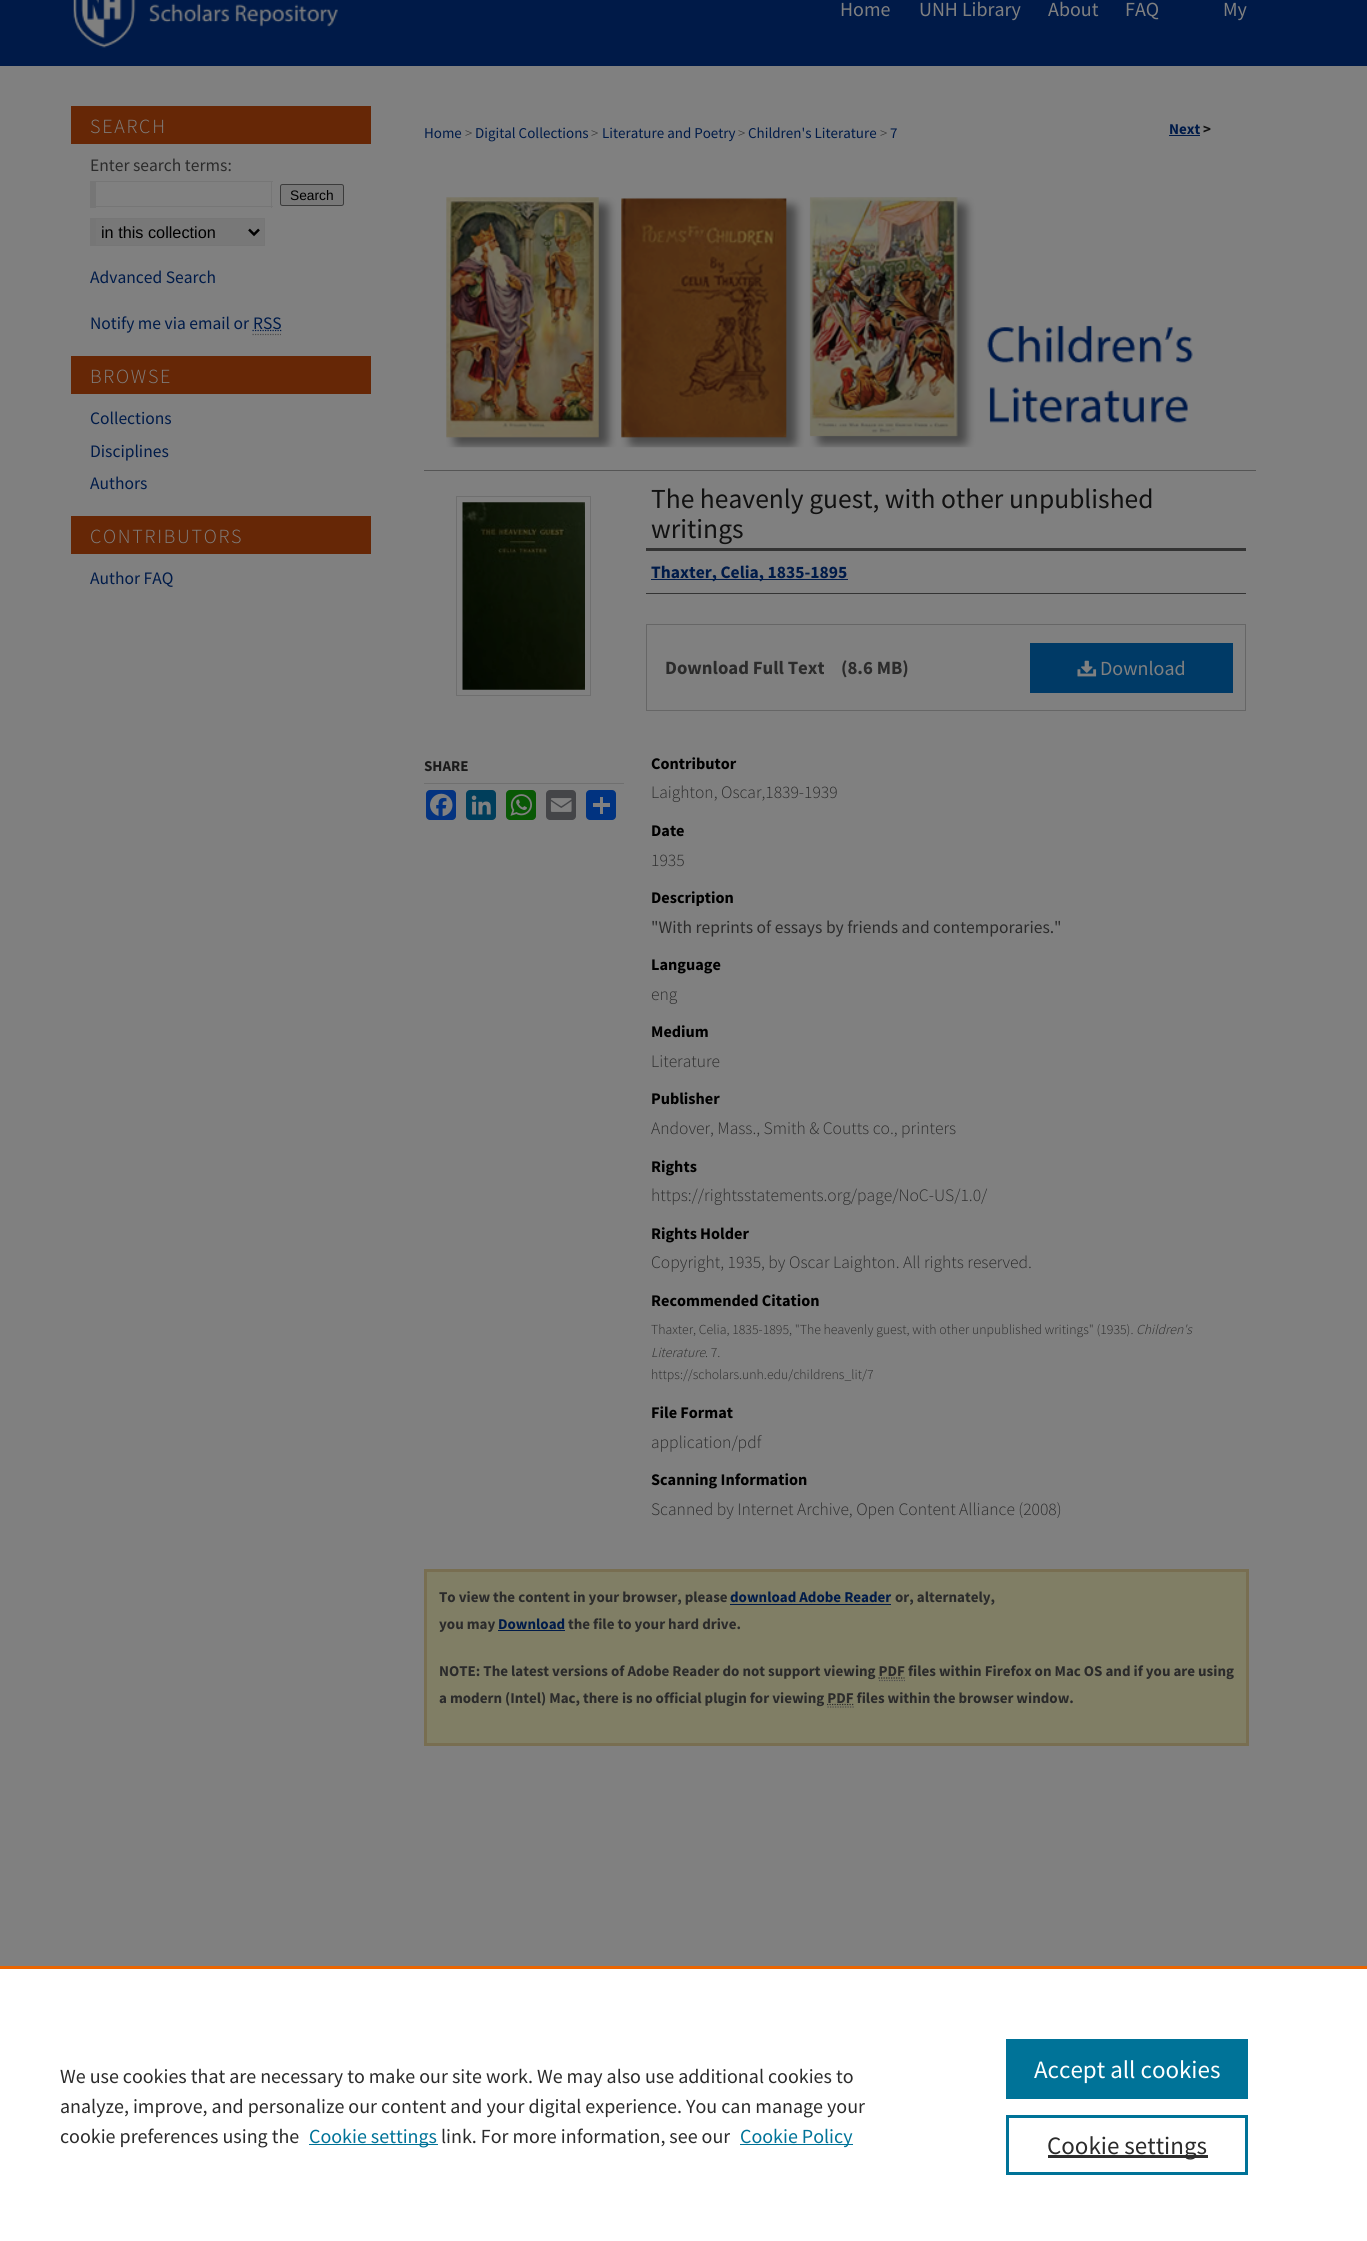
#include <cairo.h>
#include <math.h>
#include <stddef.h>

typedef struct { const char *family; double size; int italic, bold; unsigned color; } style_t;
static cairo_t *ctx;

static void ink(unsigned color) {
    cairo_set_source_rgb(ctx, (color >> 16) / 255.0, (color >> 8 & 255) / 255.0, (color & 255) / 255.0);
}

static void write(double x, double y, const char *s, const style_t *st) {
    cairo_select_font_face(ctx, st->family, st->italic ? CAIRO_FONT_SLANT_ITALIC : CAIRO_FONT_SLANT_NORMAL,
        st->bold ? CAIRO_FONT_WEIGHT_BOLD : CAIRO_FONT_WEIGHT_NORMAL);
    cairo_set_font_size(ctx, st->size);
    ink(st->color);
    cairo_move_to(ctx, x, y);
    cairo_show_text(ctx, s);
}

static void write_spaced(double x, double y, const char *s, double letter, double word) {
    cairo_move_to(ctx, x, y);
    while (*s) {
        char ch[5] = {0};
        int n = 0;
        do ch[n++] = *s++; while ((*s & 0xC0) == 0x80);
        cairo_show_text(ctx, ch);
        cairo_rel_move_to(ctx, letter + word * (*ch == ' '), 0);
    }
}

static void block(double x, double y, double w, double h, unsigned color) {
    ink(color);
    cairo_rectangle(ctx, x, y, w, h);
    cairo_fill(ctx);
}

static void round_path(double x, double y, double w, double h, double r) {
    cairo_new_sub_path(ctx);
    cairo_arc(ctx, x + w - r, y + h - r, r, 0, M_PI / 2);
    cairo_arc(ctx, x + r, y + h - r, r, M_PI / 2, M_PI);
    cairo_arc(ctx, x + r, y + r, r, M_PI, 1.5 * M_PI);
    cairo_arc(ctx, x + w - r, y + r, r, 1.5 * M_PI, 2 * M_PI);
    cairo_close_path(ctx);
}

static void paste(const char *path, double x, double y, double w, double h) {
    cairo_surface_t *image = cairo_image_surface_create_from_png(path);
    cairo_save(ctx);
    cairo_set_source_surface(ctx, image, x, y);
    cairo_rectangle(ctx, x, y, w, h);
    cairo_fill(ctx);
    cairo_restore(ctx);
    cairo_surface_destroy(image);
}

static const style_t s1 = {"Source Sans Pro", 20, 0, 0, 0x808080};
static const style_t s2 = {"Source Sans Pro", 17.5, 0, 0, 0x2b2b2b};
static const style_t s3 = {"Liberation Sans", 13.75, 0, 0, 0x000000};
static const style_t s4 = {"Liberation Sans", 16.25, 0, 0, 0x000000};
static const style_t s5 = {"Source Sans Pro", 17.5, 0, 0, 0x001b49};
static const style_t s6 = {"Source Sans Pro", 15, 0, 0, 0x001b49};
static const style_t s7 = {"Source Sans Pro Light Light", 15, 0, 0, 0x2b2b2b};
static const style_t s8 = {"Source Sans Pro", 15, 0, 1, 0x001b49};
static const style_t s9 = {"Source Sans Pro", 15, 0, 1, 0x111111};
static const style_t s10 = {"Source Sans Pro", 15, 0, 1, 0x1a1a1a};
static const style_t s11 = {"Source Sans Pro", 27.5, 0, 0, 0x111111};
static const style_t s12 = {"Source Sans Pro", 17.5, 0, 1, 0x001b49};
static const style_t s13 = {"Source Sans Pro", 18.75, 0, 1, 0x2b2b2b};
static const style_t s14 = {"Source Sans Pro", 16.25, 0, 1, 0x000000};
static const style_t s15 = {"Source Sans Pro Light Light", 17.5, 0, 0, 0x2b2b2b};
static const style_t s16 = {"Source Sans Pro Light Light", 13.75, 0, 0, 0x2b2b2b};
static const style_t s17 = {"Source Sans Pro Light Light", 13.75, 1, 0, 0x2b2b2b};
static const style_t s18 = {"Source Sans Pro", 15, 0, 1, 0x2b2b2b};
static const style_t s19 = {"Source Sans Pro", 20, 0, 0, 0x2b2b2b};
static const style_t s20 = {"Source Sans Pro", 20, 0, 0, 0x007398};
static const style_t s21 = {"Source Sans Pro", 25, 0, 0, 0xffffff};
static const style_t s22 = {"Source Sans Pro", 25, 0, 0, 0x2b2b2b};

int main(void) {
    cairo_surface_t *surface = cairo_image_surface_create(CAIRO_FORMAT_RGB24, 1367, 2241);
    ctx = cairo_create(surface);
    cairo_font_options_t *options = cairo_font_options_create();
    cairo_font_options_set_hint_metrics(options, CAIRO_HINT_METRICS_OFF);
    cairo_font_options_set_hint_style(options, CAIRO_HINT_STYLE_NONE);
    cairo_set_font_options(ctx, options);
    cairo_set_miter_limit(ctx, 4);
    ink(0x808080);
    cairo_paint(ctx);
    paste("pic1.png", 0, 0, 1367, 66);
    paste("pic2.png", 73, 0, 265, 48);
    write(840, 16, "Home", &s1);
    write(919, 16, "UNH Library", &s1);
    write(1048, 16, "About", &s1);
    write(1125, 16, "FAQ", &s1);
    write(1223, 16, "My", &s1);
    block(71, 106, 300, 38, 0x662706);
    cairo_select_font_face(ctx, "Source Sans Pro Light Light", CAIRO_FONT_SLANT_NORMAL, CAIRO_FONT_WEIGHT_NORMAL);
    ink(0x808080);
    write_spaced(90, 133, "SEARCH", 1.75, 0);
    write(90, 171, "Enter search terms:", &s2);
    block(90, 181, 183, 1, 0x767676);
    block(271, 181, 1, 27, 0x767676);
    block(90, 206, 183, 1, 0x767676);
    block(90, 181, 6, 27, 0x767676);
    ink(0x787878);
    round_path(280.5, 184.5, 63, 21, 2);
    cairo_fill_preserve(ctx);
    ink(0x3b3b3b);
    cairo_set_line_width(ctx, 1);
    cairo_stroke(ctx);
    write(290, 200, "Search", &s3);
    block(96, 219, 168, 26, 0x787878);
    block(90, 218, 175, 1, 0x767676);
    block(264, 218, 1, 28, 0x767676);
    block(90, 245, 175, 1, 0x767676);
    block(90, 218, 6, 28, 0x767676);
    cairo_new_path(ctx);
    cairo_move_to(ctx, 249, 229.5);
    cairo_line_to(ctx, 254, 234.5);
    cairo_line_to(ctx, 259, 229.5);
    ink(0x000000);
    cairo_set_line_width(ctx, 2.5);
    cairo_stroke(ctx);
    write(101, 238, "in this collection", &s4);
    write(90, 283, "Advanced Search", &s5);
    write(90, 329, "Notify me via email or", &s5);
    cairo_new_path(ctx);
    cairo_move_to(ctx, 252.5, 330.5);
    cairo_line_to(ctx, 281.5, 330.5);
    cairo_set_line_width(ctx, 1.2);
    cairo_set_dash(ctx, (double[]){1.25, 1.25}, 2, 0);
    cairo_stroke(ctx);
    write(253, 329, "RSS", &s5);
    cairo_new_path(ctx);
    cairo_move_to(ctx, 252.5, 334.5);
    cairo_line_to(ctx, 281, 334.5);
    ink(0x4d4d4d);
    cairo_stroke(ctx);
    block(71, 356, 300, 38, 0x662706);
    cairo_select_font_face(ctx, "Source Sans Pro Light Light", CAIRO_FONT_SLANT_NORMAL, CAIRO_FONT_WEIGHT_NORMAL);
    cairo_set_font_size(ctx, 20);
    ink(0x808080);
    write_spaced(90, 383, "BROWSE", 1.75, 0);
    write(90, 424, "Collections", &s5);
    write(90, 457, "Disciplines", &s5);
    write(90, 489, "Authors", &s5);
    block(71, 516, 300, 38, 0x662706);
    cairo_select_font_face(ctx, "Source Sans Pro Light Light", CAIRO_FONT_SLANT_NORMAL, CAIRO_FONT_WEIGHT_NORMAL);
    cairo_set_font_size(ctx, 20);
    ink(0x808080);
    write_spaced(90, 543, "CONTRIBUTORS", 1.75, 0);
    write(90, 584, "Author FAQ", &s5);
    write(424, 138, "Home", &s6);
    write(465, 138, ">", &s7);
    write(475, 138, "Digital Collections", &s6);
    write(591, 138, ">", &s7);
    write(602, 138, "Literature and Poetry", &s6);
    write(738, 138, ">", &s7);
    write(748, 138, "Children's Literature", &s6);
    write(880, 138, ">", &s7);
    write(890, 138, "7", &s6);
    write(1169, 134, "Next", &s8);
    block(1169, 135, 31, 1, 0x001b49);
    write(1203, 134, ">", &s9);
    paste("pic3.png", 446, 197, 747, 251);
    cairo_rectangle(ctx, 456.5, 496.5, 134, 199);
    ink(0x6f6f6f);
    cairo_set_line_width(ctx, 1);
    cairo_set_dash(ctx, NULL, 0, 0);
    cairo_stroke(ctx);
    paste("pic4.png", 462, 502, 123, 188);
    block(424, 783, 200, 1, 0x6f6f6f);
    write(424, 771, "SHARE", &s10);
    ink(0x043380);
    round_path(426, 790, 30, 30, 4);
    cairo_fill(ctx);
    paste("pic5.png", 430, 793, 23, 24);
    ink(0x003e5b);
    round_path(466, 790, 30, 30, 4);
    cairo_fill(ctx);
    paste("pic6.png", 471, 795, 20, 20);
    ink(0x095805);
    round_path(506, 790, 30, 30, 4);
    cairo_fill(ctx);
    paste("pic7.png", 510, 794, 22, 22);
    ink(0x444548);
    round_path(546, 790, 30, 30, 4);
    cairo_fill(ctx);
    paste("pic8.png", 550, 798, 22, 14);
    ink(0x013380);
    round_path(586, 790, 30, 30, 4);
    cairo_fill(ctx);
    block(600, 797, 3, 17, 0x808080);
    block(593, 803, 17, 4, 0x808080);
    block(424, 470, 832, 1, 0x555555);
    write(651, 508, "The heavenly guest, with other unpublished", &s11);
    write(651, 538, "writings", &s11);
    block(646, 548, 600, 3, 0x333333);
    block(646, 593, 600, 1, 0x333333);
    block(651, 579, 197, 1, 0x001b49);
    write(651, 578, "Thaxter, Celia, 1835-1895", &s12);
    cairo_rectangle(ctx, 646.5, 624.5, 599, 86);
    ink(0x666666);
    cairo_stroke(ctx);
    write(665, 674, "Download Full Text", &s13);
    write(841, 674, "(8.6 MB)", &s13);
    block(1030, 643, 203, 50, 0x003a66);
    paste("pic9.png", 1077, 660, 20, 17);
    write(1100, 675, "Download", &s1);
    write(651, 769, "Contributor", &s14);
    write(651, 798, "Laighton, Oscar,1839-1939", &s15);
    write(651, 836, "Date", &s14);
    write(651, 866, "1935", &s15);
    write(651, 903, "Description", &s14);
    write(651, 933, "\"With reprints of essays by friends and contemporaries.\"", &s2);
    write(651, 970, "Language", &s14);
    write(651, 1000, "eng", &s15);
    write(651, 1037, "Medium", &s14);
    write(651, 1067, "Literature", &s15);
    write(651, 1104, "Publisher", &s14);
    write(651, 1134, "Andover, Mass., Smith & Coutts co., printers", &s15);
    write(651, 1172, "Rights", &s14);
    write(651, 1201, "https://rightsstatements.org/page/NoC-US/1.0/", &s15);
    write(651, 1239, "Rights Holder", &s14);
    write(651, 1268, "Copyright, 1935, by Oscar Laighton. All rights reserved.", &s15);
    write(651, 1306, "Recommended Citation", &s14);
    write(651, 1334, "Thaxter, Celia, 1835-1895, \"The heavenly guest, with other unpublished writings\" (1935).", &s16);
    write(1136, 1334, "Children's", &s17);
    write(651, 1357, "Literature", &s17);
    write(705, 1357, ". 7.", &s16);
    write(651, 1379, "https://scholars.unh.edu/childrens_lit/7", &s16);
    write(651, 1418, "File Format", &s14);
    write(651, 1448, "application/pdf", &s15);
    write(651, 1485, "Scanning Information", &s14);
    write(651, 1515, "Scanned by Internet Archive, Open Content Alliance (2008)", &s15);
    ink(0x807e65);
    cairo_rectangle(ctx, 425.5, 1570.5, 822, 174);
    cairo_fill_preserve(ctx);
    ink(0x786e51);
    cairo_set_line_width(ctx, 3);
    cairo_stroke(ctx);
    write(439, 1602, "To view the content in your browser, please", &s18);
    write(730, 1602, "download Adobe Reader", &s8);
    block(730, 1604, 161, 1, 0x001b49);
    write(895, 1602, "or, alternately,", &s18);
    write(439, 1629, "you may", &s18);
    write(498, 1629, "Download", &s8);
    block(498, 1630, 67, 1, 0x001b49);
    write(568, 1629, "the file to your hard drive.", &s18);
    write(439, 1676, "NOTE: The latest versions of Adobe Reader do not support viewing PDF files within Firefox on Mac OS and if you are using", &s18);
    cairo_new_path(ctx);
    cairo_move_to(ctx, 878.5, 1678);
    cairo_line_to(ctx, 904.5, 1678);
    cairo_set_line_width(ctx, 1.2);
    cairo_set_dash(ctx, (double[]){1.25, 1.25}, 2, 0);
    cairo_stroke(ctx);
    cairo_new_path(ctx);
    cairo_move_to(ctx, 879, 1680.5);
    cairo_line_to(ctx, 905, 1680.5);
    ink(0x4d4d4d);
    cairo_stroke(ctx);
    write(439, 1703, "a modern (Intel) Mac, there is no official plugin for viewing PDF files within the browser window.", &s18);
    cairo_new_path(ctx);
    cairo_move_to(ctx, 827, 1704.5);
    cairo_line_to(ctx, 853.5, 1704.5);
    cairo_stroke(ctx);
    cairo_new_path(ctx);
    cairo_move_to(ctx, 827.5, 1707);
    cairo_line_to(ctx, 854, 1707);
    ink(0x4d4d4d);
    cairo_stroke(ctx);
    block(0, 1969, 1367, 272, 0xffffff);
    block(0, 1966, 1367, 3, 0xeb6500);
    write(60, 2083, "We use cookies that are necessary to make our site work. We may also use additional cookies to", &s19);
    write(60, 2113, "analyze, improve, and personalize our content and your digital experience. You can manage your", &s19);
    write(60, 2143, "cookie preferences using the", &s19);
    block(309, 2144, 129, 1, 0x007398);
    write(309, 2143, "Cookie settings", &s20);
    write(441, 2143, "link. For more information, see our", &s19);
    block(740, 2144, 113, 1, 0x007398);
    write(740, 2143, "Cookie Policy", &s20);
    block(1006, 2039, 242, 60, 0x007398);
    write(1034, 2078, "Accept all cookies", &s21);
    cairo_rectangle(ctx, 1007.5, 2116.5, 239, 57);
    ink(0x007398);
    cairo_set_line_width(ctx, 3);
    cairo_set_dash(ctx, NULL, 0, 0);
    cairo_stroke(ctx);
    block(1048, 2155, 160, 3, 0x2e2e2e);
    write(1047, 2154, "Cookie settings", &s22);
    cairo_surface_write_to_png(surface, "screenshot.png");
    cairo_font_options_destroy(options);
    cairo_destroy(ctx);
    cairo_surface_destroy(surface);
    return 0;
}
